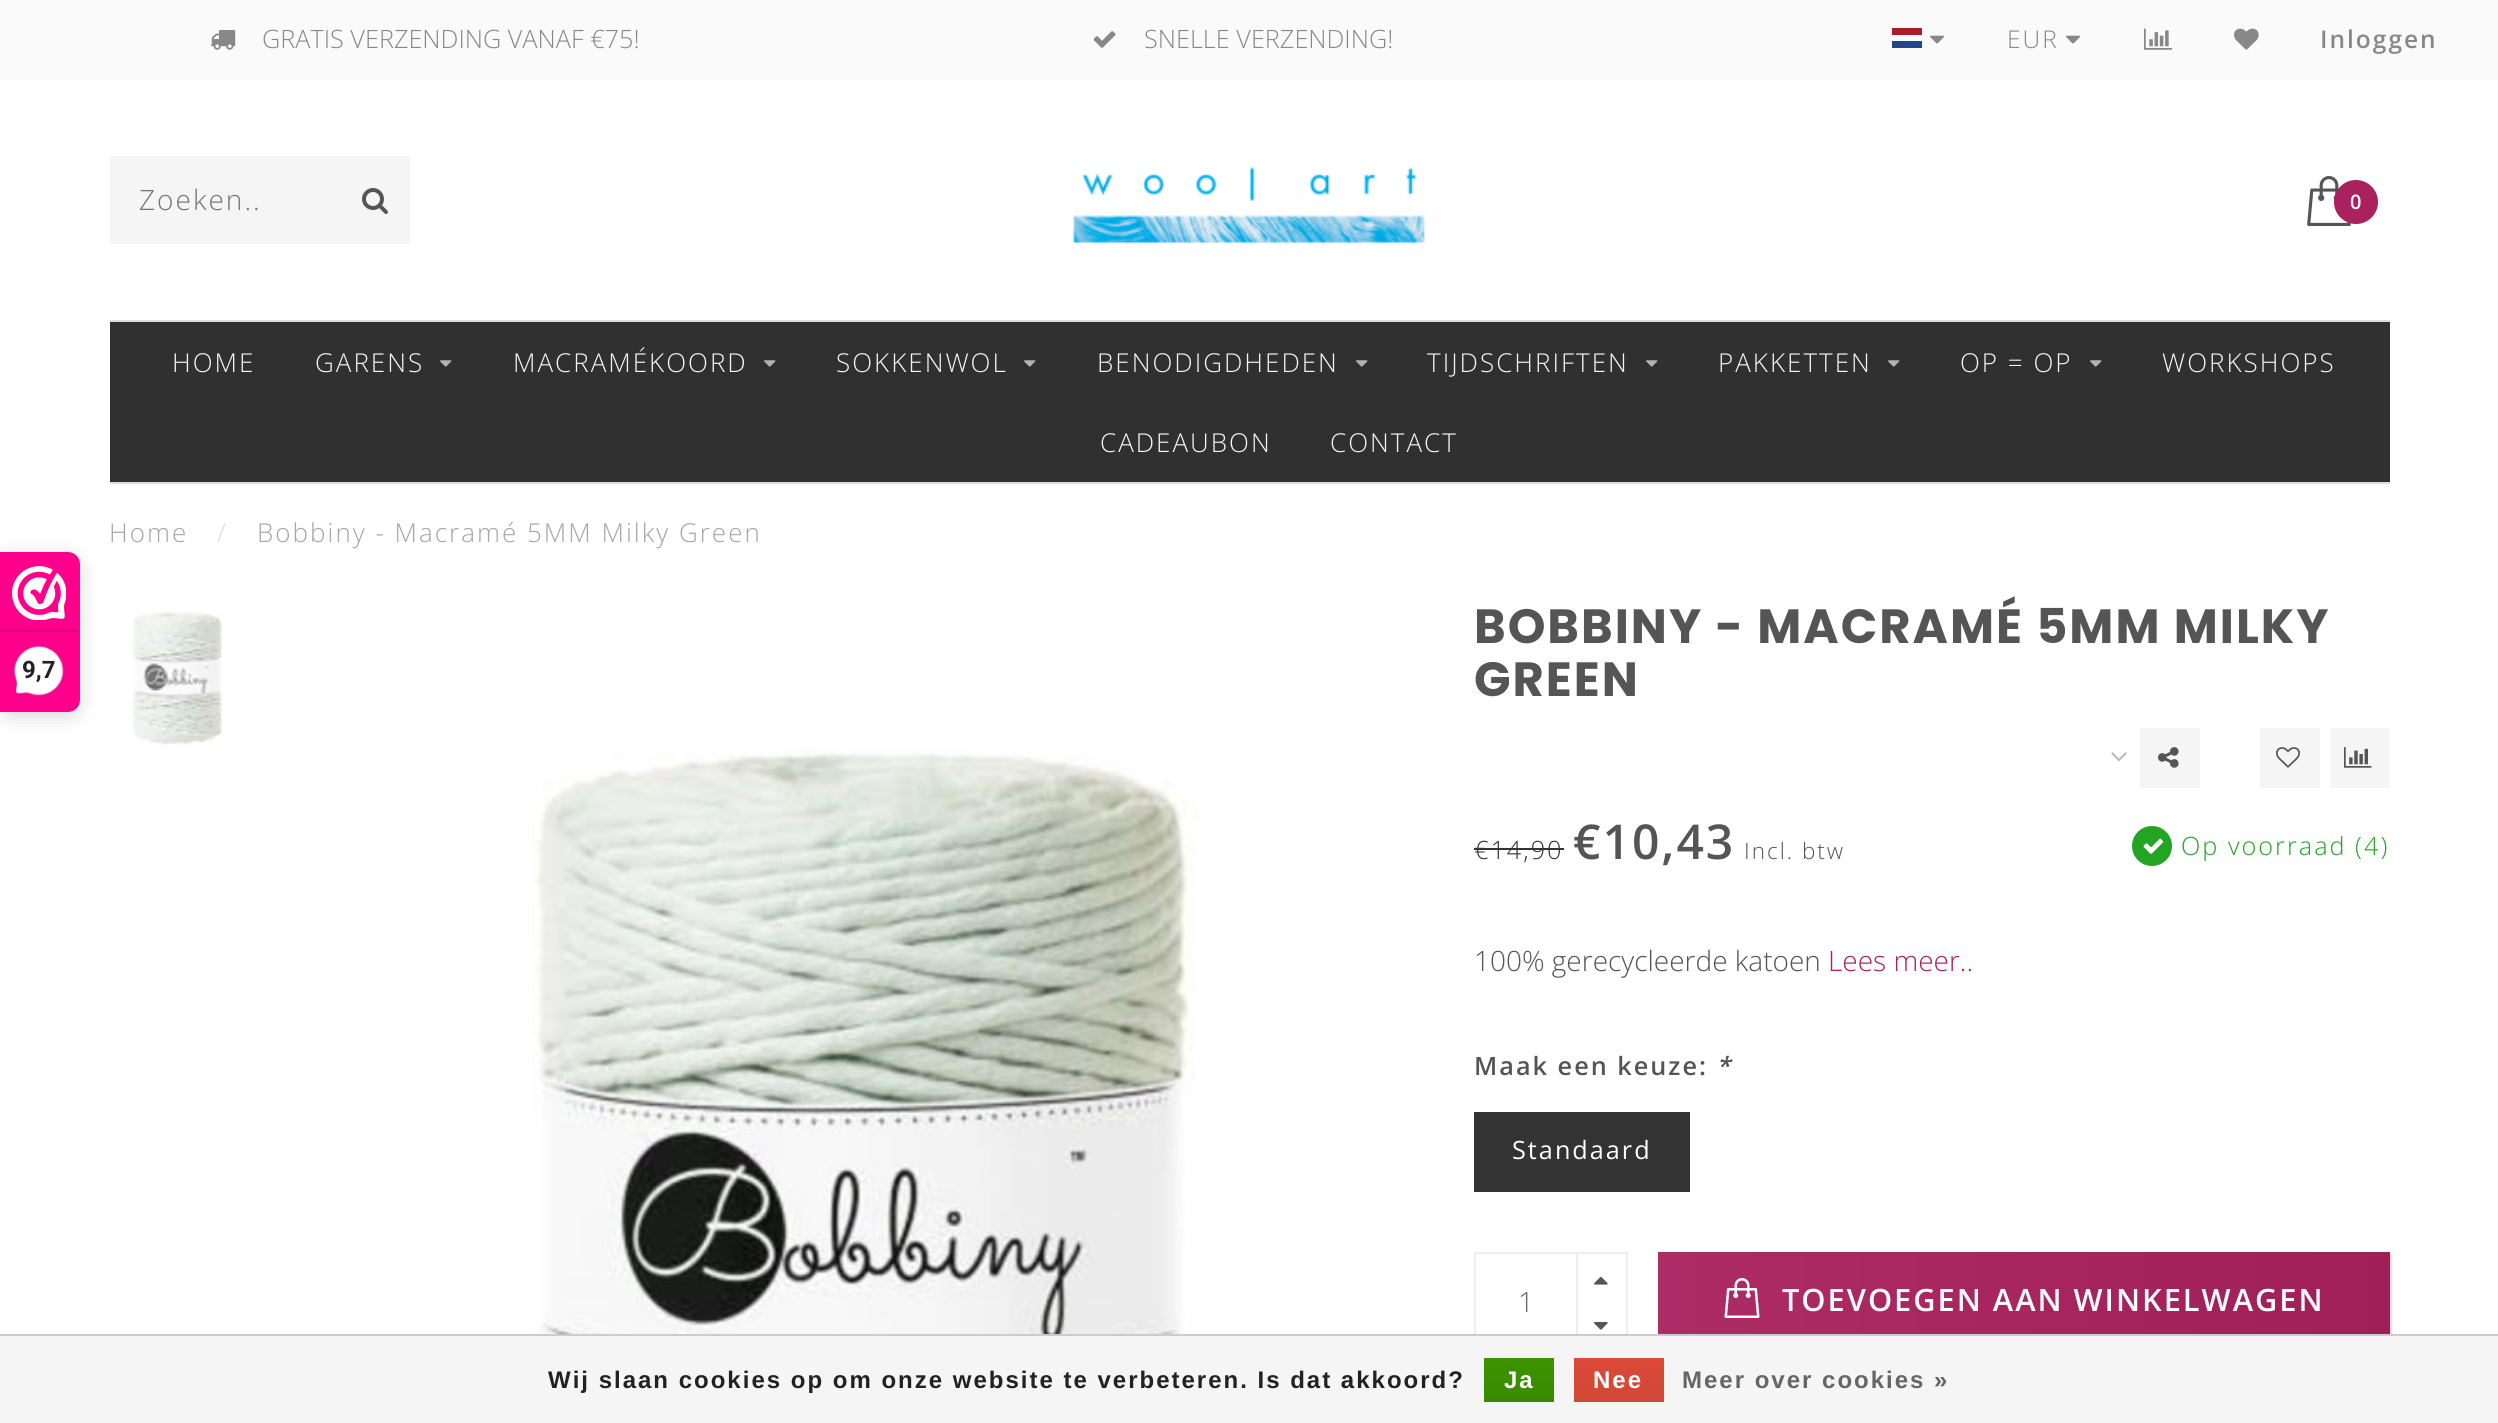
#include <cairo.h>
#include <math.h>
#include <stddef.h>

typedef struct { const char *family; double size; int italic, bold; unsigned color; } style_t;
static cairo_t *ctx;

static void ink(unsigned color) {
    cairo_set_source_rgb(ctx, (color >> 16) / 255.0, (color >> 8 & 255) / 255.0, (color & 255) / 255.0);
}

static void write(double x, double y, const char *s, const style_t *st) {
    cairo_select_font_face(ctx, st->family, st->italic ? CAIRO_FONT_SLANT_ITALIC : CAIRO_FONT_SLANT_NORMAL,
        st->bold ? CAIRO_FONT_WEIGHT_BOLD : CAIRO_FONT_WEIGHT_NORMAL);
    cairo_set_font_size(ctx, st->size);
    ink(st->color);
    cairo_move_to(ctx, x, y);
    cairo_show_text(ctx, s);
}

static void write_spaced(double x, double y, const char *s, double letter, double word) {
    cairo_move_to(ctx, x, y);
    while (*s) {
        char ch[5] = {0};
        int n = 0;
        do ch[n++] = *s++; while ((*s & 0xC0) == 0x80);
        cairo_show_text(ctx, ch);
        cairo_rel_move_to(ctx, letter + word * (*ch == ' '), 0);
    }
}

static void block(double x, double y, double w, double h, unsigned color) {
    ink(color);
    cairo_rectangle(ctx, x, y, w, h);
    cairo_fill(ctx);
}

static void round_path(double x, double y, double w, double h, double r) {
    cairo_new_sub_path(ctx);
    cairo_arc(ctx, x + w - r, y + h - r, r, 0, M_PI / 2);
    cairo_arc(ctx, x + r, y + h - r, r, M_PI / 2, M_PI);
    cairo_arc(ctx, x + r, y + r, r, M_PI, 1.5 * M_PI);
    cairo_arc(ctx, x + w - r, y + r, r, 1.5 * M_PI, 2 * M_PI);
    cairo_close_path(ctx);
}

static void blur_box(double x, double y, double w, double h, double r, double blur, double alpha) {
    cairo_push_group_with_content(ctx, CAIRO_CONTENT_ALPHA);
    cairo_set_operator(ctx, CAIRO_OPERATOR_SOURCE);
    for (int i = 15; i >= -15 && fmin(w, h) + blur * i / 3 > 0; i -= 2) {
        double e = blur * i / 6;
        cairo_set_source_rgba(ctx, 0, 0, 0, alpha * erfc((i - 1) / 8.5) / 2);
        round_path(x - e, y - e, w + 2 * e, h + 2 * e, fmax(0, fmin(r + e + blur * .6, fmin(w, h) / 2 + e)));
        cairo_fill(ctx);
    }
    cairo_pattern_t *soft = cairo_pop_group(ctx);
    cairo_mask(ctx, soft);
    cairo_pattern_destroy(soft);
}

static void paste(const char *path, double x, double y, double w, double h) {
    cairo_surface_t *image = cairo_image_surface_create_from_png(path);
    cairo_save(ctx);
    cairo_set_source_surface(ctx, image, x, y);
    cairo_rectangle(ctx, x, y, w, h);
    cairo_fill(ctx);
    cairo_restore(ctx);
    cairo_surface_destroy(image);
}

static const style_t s1 = {"Roboto", 24, 0, 1, 0x222222};
static const style_t s2 = {"Open Sans Light", 25.25, 0, 0, 0x888888};
static const style_t s3 = {"Open Sans Light", 28, 0, 0, 0x555555};
static const style_t s4 = {"Open Sans Light", 28, 0, 0, 0xa9215e};
static const style_t s5 = {"Open Sans Light", 28, 0, 0, 0x666666};

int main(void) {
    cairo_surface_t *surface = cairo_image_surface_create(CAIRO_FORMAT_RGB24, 2498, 1423);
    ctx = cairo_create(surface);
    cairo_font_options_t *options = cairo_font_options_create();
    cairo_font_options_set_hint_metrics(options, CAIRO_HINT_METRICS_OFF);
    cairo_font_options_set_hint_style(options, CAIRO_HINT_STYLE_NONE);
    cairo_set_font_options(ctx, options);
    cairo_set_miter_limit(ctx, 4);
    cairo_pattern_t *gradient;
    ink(0xffffff);
    cairo_paint(ctx);
    ink(0x000000);
    blur_box(0, 556, 80, 160, 12, 10, 0.15);
    ink(0xfe008c);
    cairo_new_path(ctx);
    cairo_move_to(ctx, 0, 552);
    cairo_line_to(ctx, 68, 552);
    cairo_curve_to(ctx, 74.5, 552, 80, 557.5, 80, 564);
    cairo_line_to(ctx, 80, 700);
    cairo_curve_to(ctx, 80, 706.5, 74.5, 712, 68, 712);
    cairo_line_to(ctx, 0, 712);
    cairo_close_path(ctx);
    cairo_fill(ctx);
    paste("pic1.png", 12, 566, 54, 54);
    block(0, 630, 78, 2, 0xd80077);
    paste("pic2.png", 14, 646, 50, 50);
    write(22, 678, "9,7", &s1);
    block(0, 0, 2498, 80, 0xfafafa);
    paste("pic3.png", 210, 30, 26, 20);
    write(262, 48, "GRATIS VERZENDING VANAF €75!", &s2);
    paste("pic4.png", 1093, 31, 23, 17);
    write(1144, 48, "SNELLE VERZENDING!", &s2);
    paste("pic5.png", 1892, 28, 30, 20);
    paste("pic6.png", 1930, 35, 14, 9);
    cairo_set_font_size(ctx, 24.5);
    write_spaced(2007, 48, "EUR", 2, 0);
    paste("pic6.png", 2066, 35, 14, 9);
    paste("pic7.png", 2144, 28, 29, 22);
    paste("pic8.png", 2234, 28, 25, 22);
    cairo_select_font_face(ctx, "Open Sans SemiBold", CAIRO_FONT_SLANT_NORMAL, CAIRO_FONT_WEIGHT_NORMAL);
    write_spaced(2320, 48, "Inloggen", 2, 0);
    block(110, 156, 300, 88, 0xf5f5f5);
    cairo_select_font_face(ctx, "Open Sans Light", CAIRO_FONT_SLANT_NORMAL, CAIRO_FONT_WEIGHT_NORMAL);
    cairo_set_font_size(ctx, 28);
    ink(0x757575);
    write_spaced(139, 210, "Zoeken..", 2, 0);
    paste("pic9.png", 362, 188, 26, 26);
    paste("pic10.png", 1072, 167, 354, 77);
    paste("pic11.png", 2307, 176, 44, 50);
    ink(0xa9215e);
    cairo_arc(ctx, 2356, 202, 22, 0, 2 * M_PI);
    cairo_fill(ctx);
    cairo_select_font_face(ctx, "Open Sans SemiBold", CAIRO_FONT_SLANT_NORMAL, CAIRO_FONT_WEIGHT_NORMAL);
    cairo_set_font_size(ctx, 20);
    ink(0xffffff);
    write_spaced(2350, 209, "0", 2, 0);
    block(110, 322, 2280, 160, 0x303030);
    block(110, 320, 2280, 2, 0xdddddd);
    block(110, 482, 2280, 2, 0xdddddd);
    cairo_select_font_face(ctx, "Open Sans Light", CAIRO_FONT_SLANT_NORMAL, CAIRO_FONT_WEIGHT_NORMAL);
    cairo_set_font_size(ctx, 26);
    ink(0xf5f5f5);
    write_spaced(172, 372, "HOME", 2, 0);
    write_spaced(315, 372, "GARENS", 2, 0);
    paste("pic12.png", 440, 360, 12, 7);
    write_spaced(513, 372, "MACRAMÉKOORD", 2, 0);
    paste("pic12.png", 764, 360, 12, 7);
    write_spaced(836, 372, "SOKKENWOL", 2, 0);
    paste("pic12.png", 1024, 360, 12, 7);
    write_spaced(1097, 372, "BENODIGDHEDEN", 2, 0);
    paste("pic12.png", 1356, 360, 12, 7);
    write_spaced(1427, 372, "TIJDSCHRIFTEN", 2, 0);
    paste("pic12.png", 1646, 360, 12, 7);
    write_spaced(1718, 372, "PAKKETTEN", 2, 0);
    paste("pic12.png", 1888, 360, 12, 7);
    write_spaced(1960, 372, "OP = OP", 2, 0);
    paste("pic12.png", 2090, 360, 12, 7);
    write_spaced(2162, 372, "WORKSHOPS", 2, 0);
    write_spaced(1100, 452, "CADEAUBON", 2, 0);
    write_spaced(1330, 452, "CONTACT", 2, 0);
    ink(0xa5a5a5);
    write_spaced(109, 542, "Home", 2, 0);
    ink(0xdddddd);
    write_spaced(217, 542, "/", 2, 0);
    ink(0xa5a5a5);
    write_spaced(257, 542, "Bobbiny - Macramé 5MM Milky Green", 2, 0);
    paste("pic13.png", 131, 611, 94, 135);
    cairo_select_font_face(ctx, "Poppins", CAIRO_FONT_SLANT_NORMAL, CAIRO_FONT_WEIGHT_BOLD);
    cairo_set_font_size(ctx, 48);
    ink(0x555555);
    write_spaced(1474, 643, "BOBBINY - MACRAMÉ 5MM MILKY", 2, 0);
    write_spaced(1474, 696, "GREEN", 2, 0);
    paste("pic14.png", 2111, 752, 16, 10);
    block(2140, 728, 60, 60, 0xf5f5f5);
    paste("pic15.png", 2158, 747, 21, 21);
    block(2260, 728, 60, 60, 0xf5f5f5);
    paste("pic16.png", 2276, 747, 24, 21);
    block(2330, 728, 60, 60, 0xf5f5f5);
    paste("pic17.png", 2344, 747, 28, 21);
    cairo_select_font_face(ctx, "Open Sans Light", CAIRO_FONT_SLANT_NORMAL, CAIRO_FONT_WEIGHT_NORMAL);
    cairo_set_font_size(ctx, 25.25);
    ink(0x333333);
    write_spaced(1474, 859, "€14,90", 2, 0);
    block(1474, 848, 90, 2, 0x333333);
    cairo_select_font_face(ctx, "Open Sans SemiBold", CAIRO_FONT_SLANT_NORMAL, CAIRO_FONT_WEIGHT_NORMAL);
    cairo_set_font_size(ctx, 48);
    ink(0x555555);
    write_spaced(1573, 859, "€10,43", 2, 0);
    cairo_select_font_face(ctx, "Open Sans Light", CAIRO_FONT_SLANT_NORMAL, CAIRO_FONT_WEIGHT_NORMAL);
    cairo_set_font_size(ctx, 22.5);
    write_spaced(1744, 859, "Incl. btw", 2, 0);
    ink(0x22a522);
    cairo_new_path(ctx);
    cairo_arc(ctx, 2152, 846, 20, 0, 2 * M_PI);
    cairo_fill(ctx);
    paste("pic18.png", 2143, 838, 21, 16);
    cairo_set_font_size(ctx, 25.25);
    write_spaced(2181, 855, "Op voorraad (4)", 2, 0);
    write(1474, 971, "100% gerecycleerde katoen", &s3);
    write(1828, 971, "Lees meer..", &s4);
    cairo_select_font_face(ctx, "Open Sans SemiBold", CAIRO_FONT_SLANT_NORMAL, CAIRO_FONT_WEIGHT_NORMAL);
    cairo_set_font_size(ctx, 25.25);
    ink(0x555555);
    write_spaced(1474, 1075, "Maak een keuze:", 2, 0);
    cairo_select_font_face(ctx, "Open Sans SemiBold", CAIRO_FONT_SLANT_ITALIC, CAIRO_FONT_WEIGHT_NORMAL);
    write_spaced(1716, 1075, "*", 2, 0);
    block(1474, 1112, 216, 80, 0x333333);
    cairo_select_font_face(ctx, "Open Sans", CAIRO_FONT_SLANT_NORMAL, CAIRO_FONT_WEIGHT_NORMAL);
    ink(0xffffff);
    write_spaced(1512, 1159, "Standaard", 2, 0);
    cairo_rectangle(ctx, 1475, 1253, 152, 98);
    ink(0xeeeeee);
    cairo_stroke(ctx);
    write(1518, 1312, "1", &s5);
    block(1576, 1254, 2, 80, 0xeeeeee);
    paste("pic19.png", 1594, 1276, 14, 9);
    paste("pic20.png", 1594, 1322, 14, 8);
    ink(0x000000);
    blur_box(1660, 1254, 732, 100, 0, 1, 0.15);
    gradient = cairo_pattern_create_linear(1658, 1302, 2390, 1302);
    cairo_pattern_add_color_stop_rgba(gradient, 0, 0.678, 0.173, 0.4, 1);
    cairo_pattern_add_color_stop_rgba(gradient, 1, 0.627, 0.122, 0.349, 1);
    cairo_set_source(ctx, gradient);
    cairo_pattern_destroy(gradient);
    cairo_rectangle(ctx, 1658, 1252, 732, 82);
    cairo_fill(ctx);
    paste("pic21.png", 1724, 1278, 36, 40);
    cairo_select_font_face(ctx, "Open Sans SemiBold", CAIRO_FONT_SLANT_NORMAL, CAIRO_FONT_WEIGHT_NORMAL);
    cairo_set_font_size(ctx, 30.75);
    ink(0xffffff);
    write_spaced(1782, 1311, "TOEVOEGEN AAN WINKELWAGEN", 2, 0);
    paste("pic22.png", 532, 746, 665, 588);
    block(0, 1336, 2498, 87, 0xf5f5f5);
    block(0, 1334, 2498, 2, 0xcccccc);
    cairo_select_font_face(ctx, "Liberation Sans", CAIRO_FONT_SLANT_NORMAL, CAIRO_FONT_WEIGHT_BOLD);
    cairo_set_font_size(ctx, 24);
    ink(0x222222);
    write_spaced(548, 1388, "Wij slaan cookies op om onze website te verbeteren. Is dat akkoord?", 2, 0);
    gradient = cairo_pattern_create_linear(1519, 1358, 1519, 1402);
    cairo_pattern_add_color_stop_rgba(gradient, 0, 0.235, 0.576, 0, 1);
    cairo_pattern_add_color_stop_rgba(gradient, 1, 0.224, 0.541, 0, 1);
    cairo_set_source(ctx, gradient);
    cairo_pattern_destroy(gradient);
    cairo_rectangle(ctx, 1484, 1358, 70, 44);
    cairo_fill(ctx);
    ink(0xffffff);
    write_spaced(1504, 1388, "Ja", 2, 0);
    gradient = cairo_pattern_create_linear(1619, 1358, 1619, 1402);
    cairo_pattern_add_color_stop_rgba(gradient, 0, 0.863, 0.29, 0.22, 1);
    cairo_pattern_add_color_stop_rgba(gradient, 1, 0.82, 0.282, 0.212, 1);
    cairo_set_source(ctx, gradient);
    cairo_pattern_destroy(gradient);
    cairo_rectangle(ctx, 1574, 1358, 90, 44);
    cairo_fill(ctx);
    ink(0xffffff);
    write_spaced(1593, 1388, "Nee", 2, 0);
    ink(0x666666);
    write_spaced(1682, 1388, "Meer over cookies »", 2, 0);
    cairo_surface_write_to_png(surface, "screenshot.png");
    cairo_font_options_destroy(options);
    cairo_destroy(ctx);
    cairo_surface_destroy(surface);
    return 0;
}
